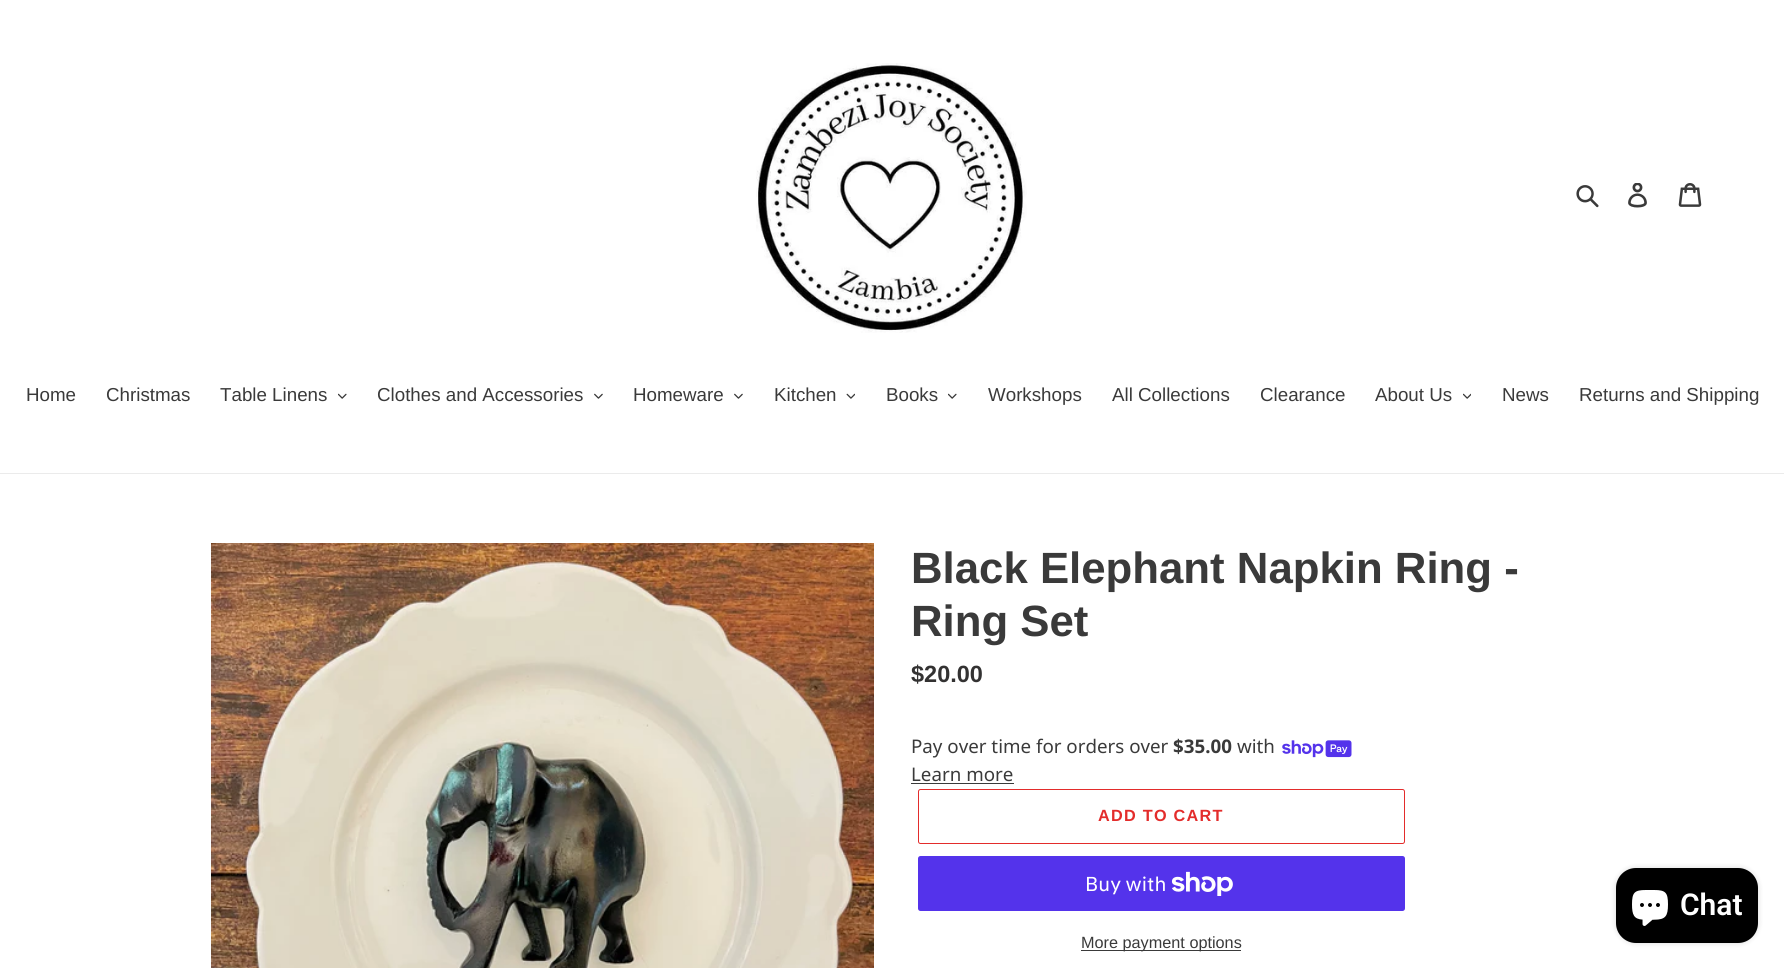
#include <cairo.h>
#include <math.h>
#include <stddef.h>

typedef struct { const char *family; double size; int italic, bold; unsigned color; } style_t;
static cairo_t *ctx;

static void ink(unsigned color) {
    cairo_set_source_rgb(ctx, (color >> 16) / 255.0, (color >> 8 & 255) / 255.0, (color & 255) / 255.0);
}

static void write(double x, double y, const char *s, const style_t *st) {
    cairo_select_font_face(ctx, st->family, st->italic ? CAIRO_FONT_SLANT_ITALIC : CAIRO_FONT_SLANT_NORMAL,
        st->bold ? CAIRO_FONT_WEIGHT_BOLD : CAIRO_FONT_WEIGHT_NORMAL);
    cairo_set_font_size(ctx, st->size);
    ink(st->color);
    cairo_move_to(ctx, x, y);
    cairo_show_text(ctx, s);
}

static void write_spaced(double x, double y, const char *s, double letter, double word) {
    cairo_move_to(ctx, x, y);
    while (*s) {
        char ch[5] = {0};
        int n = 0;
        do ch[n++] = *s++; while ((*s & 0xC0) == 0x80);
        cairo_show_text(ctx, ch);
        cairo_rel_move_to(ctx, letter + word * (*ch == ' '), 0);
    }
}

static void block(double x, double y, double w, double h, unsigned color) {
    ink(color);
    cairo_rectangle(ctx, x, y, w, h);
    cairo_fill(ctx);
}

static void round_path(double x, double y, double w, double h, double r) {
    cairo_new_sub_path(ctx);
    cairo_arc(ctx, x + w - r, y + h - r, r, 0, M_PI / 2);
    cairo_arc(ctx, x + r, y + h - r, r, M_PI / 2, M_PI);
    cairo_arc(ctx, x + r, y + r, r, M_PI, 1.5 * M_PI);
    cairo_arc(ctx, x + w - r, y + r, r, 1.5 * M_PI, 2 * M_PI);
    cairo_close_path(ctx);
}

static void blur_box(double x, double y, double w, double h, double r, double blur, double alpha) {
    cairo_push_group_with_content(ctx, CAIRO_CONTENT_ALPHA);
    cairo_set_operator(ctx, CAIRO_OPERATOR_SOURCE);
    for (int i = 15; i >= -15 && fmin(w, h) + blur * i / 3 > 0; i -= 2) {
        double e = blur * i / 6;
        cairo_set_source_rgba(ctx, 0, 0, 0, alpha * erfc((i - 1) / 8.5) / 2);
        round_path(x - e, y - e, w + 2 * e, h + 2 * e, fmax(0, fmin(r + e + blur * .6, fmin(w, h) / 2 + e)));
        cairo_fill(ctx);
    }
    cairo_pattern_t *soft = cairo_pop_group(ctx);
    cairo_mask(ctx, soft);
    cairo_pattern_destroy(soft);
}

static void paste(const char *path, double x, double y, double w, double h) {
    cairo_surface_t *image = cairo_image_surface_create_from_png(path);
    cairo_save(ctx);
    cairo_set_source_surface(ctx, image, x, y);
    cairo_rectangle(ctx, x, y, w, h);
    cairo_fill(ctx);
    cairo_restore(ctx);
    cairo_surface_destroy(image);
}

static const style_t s1 = {"Liberation Sans", 18.75, 0, 0, 0x3a3a3a};
static const style_t s2 = {"Liberation Sans", 43.75, 0, 1, 0x3a3a3a};
static const style_t s3 = {"Liberation Sans", 23.5, 0, 1, 0x333232};
static const style_t s4 = {"Noto Sans", 18.75, 0, 0, 0x3a3a3a};
static const style_t s5 = {"Noto Sans", 18.75, 0, 1, 0x3a3a3a};
static const style_t s6 = {"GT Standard", 20, 0, 0, 0xffffff};
static const style_t s7 = {"Liberation Sans", 16.25, 0, 0, 0x3a3a3a};
static const style_t s8 = {"Roboto SemiBold", 30, 0, 0, 0xffffff};

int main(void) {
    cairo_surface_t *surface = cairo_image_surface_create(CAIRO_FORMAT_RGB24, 1784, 968);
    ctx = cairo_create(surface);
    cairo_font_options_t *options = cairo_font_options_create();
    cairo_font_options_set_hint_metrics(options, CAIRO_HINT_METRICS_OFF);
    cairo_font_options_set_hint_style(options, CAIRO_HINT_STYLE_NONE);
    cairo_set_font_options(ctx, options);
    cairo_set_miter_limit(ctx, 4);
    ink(0xffffff);
    cairo_paint(ctx);
    paste("pic1.png", 756, 63, 271, 270);
    paste("pic2.png", 1576, 185, 23, 23);
    paste("pic3.png", 1628, 183, 19, 25);
    paste("pic4.png", 1678, 183, 24, 24);
    block(0, 473, 1784, 1, 0xebebeb);
    write(26, 401, "Home", &s1);
    write(106, 401, "Christmas", &s1);
    write(220, 401, "Table Linens", &s1);
    paste("pic5.png", 338, 393, 9, 6);
    write(377, 401, "Clothes and Accessories", &s1);
    paste("pic6.png", 594, 393, 9, 6);
    write(633, 401, "Homeware", &s1);
    paste("pic6.png", 734, 393, 9, 6);
    write(774, 401, "Kitchen", &s1);
    paste("pic7.png", 846, 393, 9, 6);
    write(886, 401, "Books", &s1);
    paste("pic5.png", 948, 393, 9, 6);
    write(988, 401, "Workshops", &s1);
    write(1112, 401, "All Collections", &s1);
    write(1260, 401, "Clearance", &s1);
    write(1375, 401, "About Us", &s1);
    paste("pic8.png", 1463, 393, 8, 6);
    write(1502, 401, "News", &s1);
    write(1579, 401, "Returns and Shipping", &s1);
    paste("pic9.png", 211, 543, 663, 425);
    write(911, 583, "Black Elephant Napkin Ring -", &s2);
    write(911, 636, "Ring Set", &s2);
    write(911, 682, "$20.00", &s3);
    write(911, 753, "Pay over time for orders over", &s4);
    write(1173, 753, "$35.00", &s5);
    write(1237, 753, "with", &s4);
    paste("pic10.png", 1282, 740, 70, 18);
    write(911, 781, "Learn more", &s4);
    block(911, 783, 103, 1, 0x3a3a3a);
    round_path(918.5, 789.5, 486, 54, 2);
    ink(0xe32c2b);
    cairo_set_line_width(ctx, 1);
    cairo_stroke(ctx);
    cairo_select_font_face(ctx, "Liberation Sans", CAIRO_FONT_SLANT_NORMAL, CAIRO_FONT_WEIGHT_BOLD);
    cairo_set_font_size(ctx, 16.25);
    write_spaced(1098, 821, "ADD TO CART", 1.25, 0);
    ink(0x5433eb);
    round_path(918, 856, 487, 55, 2.5);
    cairo_fill(ctx);
    write(1085, 891, "Buy with", &s6);
    paste("pic11.png", 1171, 871, 62, 25);
    block(1081, 950, 160, 1, 0x3a3a3a);
    write(1081, 948, "More payment options", &s7);
    ink(0x000000);
    blur_box(1616, 868, 142, 75, 20, 3, 0.15);
    ink(0x000000);
    round_path(1616, 868, 142, 75, 20);
    cairo_fill(ctx);
    paste("pic12.png", 1632, 890, 36, 36);
    write(1680, 915, "Chat", &s8);
    cairo_surface_write_to_png(surface, "screenshot.png");
    cairo_font_options_destroy(options);
    cairo_destroy(ctx);
    cairo_surface_destroy(surface);
    return 0;
}
